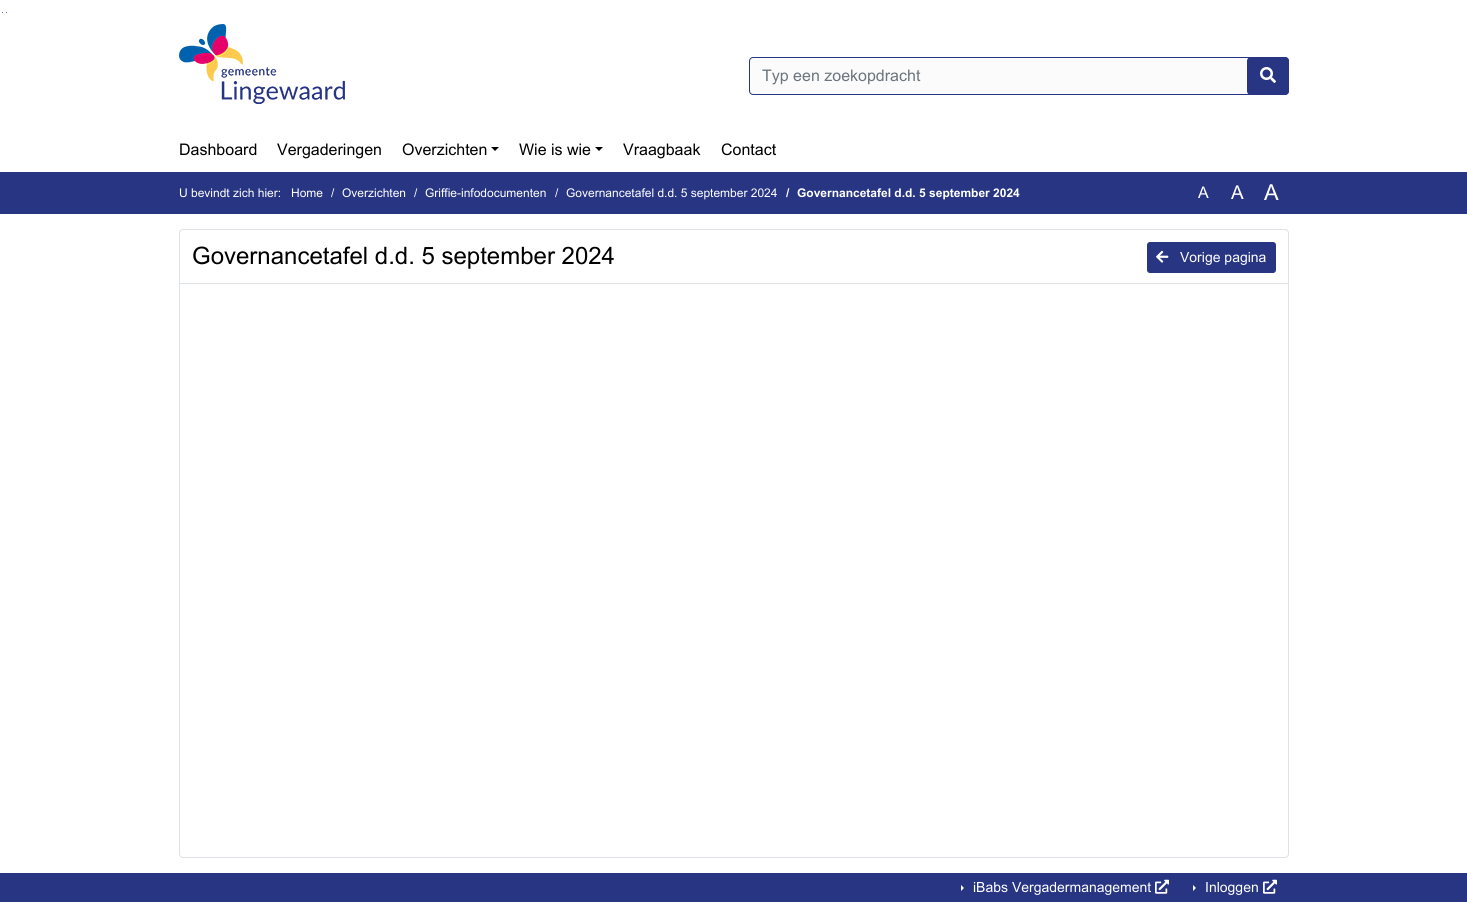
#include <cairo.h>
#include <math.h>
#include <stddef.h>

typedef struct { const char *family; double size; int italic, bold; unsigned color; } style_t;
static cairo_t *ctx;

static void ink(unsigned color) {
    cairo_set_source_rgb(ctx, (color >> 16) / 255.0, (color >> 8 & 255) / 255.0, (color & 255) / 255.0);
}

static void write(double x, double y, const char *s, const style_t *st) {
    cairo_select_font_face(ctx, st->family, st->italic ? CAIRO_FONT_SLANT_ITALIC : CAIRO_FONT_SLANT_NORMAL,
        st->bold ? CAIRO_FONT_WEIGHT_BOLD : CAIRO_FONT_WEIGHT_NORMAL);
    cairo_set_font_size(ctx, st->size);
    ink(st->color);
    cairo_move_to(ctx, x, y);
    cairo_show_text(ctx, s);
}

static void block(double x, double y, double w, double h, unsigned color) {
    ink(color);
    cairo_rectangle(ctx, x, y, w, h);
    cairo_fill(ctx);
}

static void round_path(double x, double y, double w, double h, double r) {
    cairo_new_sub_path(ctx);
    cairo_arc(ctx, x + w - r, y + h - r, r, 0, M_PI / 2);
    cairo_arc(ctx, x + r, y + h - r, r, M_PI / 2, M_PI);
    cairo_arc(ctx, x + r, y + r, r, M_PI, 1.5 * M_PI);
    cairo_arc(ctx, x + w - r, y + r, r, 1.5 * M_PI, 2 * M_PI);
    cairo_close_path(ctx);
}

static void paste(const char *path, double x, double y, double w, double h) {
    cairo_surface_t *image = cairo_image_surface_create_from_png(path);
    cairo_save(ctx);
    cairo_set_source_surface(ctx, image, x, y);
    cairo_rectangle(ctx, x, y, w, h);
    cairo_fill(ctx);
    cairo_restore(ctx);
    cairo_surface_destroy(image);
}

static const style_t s1 = {"Arial", 16, 0, 0, 0x6c757d};
static const style_t s2 = {"Arial", 16, 0, 0, 0x000000};
static const style_t s3 = {"Arial", 12, 0, 0, 0xffffff};
static const style_t s4 = {"Arial", 12, 0, 1, 0xffffff};
static const style_t s5 = {"Arial", 16, 0, 0, 0xffffff};
static const style_t s6 = {"Arial", 19, 0, 0, 0xffffff};
static const style_t s7 = {"Arial", 22, 0, 0, 0xffffff};
static const style_t s8 = {"Arial", 24, 0, 0, 0x000000};
static const style_t s9 = {"Arial", 14, 0, 0, 0xffffff};

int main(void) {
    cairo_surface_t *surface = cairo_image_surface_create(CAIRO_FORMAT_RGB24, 1467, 902);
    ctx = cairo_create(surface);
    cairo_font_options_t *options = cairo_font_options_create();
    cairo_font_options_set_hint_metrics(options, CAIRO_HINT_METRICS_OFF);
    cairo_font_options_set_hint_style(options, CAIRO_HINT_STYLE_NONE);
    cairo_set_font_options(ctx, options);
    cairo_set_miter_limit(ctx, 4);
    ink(0xffffff);
    cairo_paint(ctx);
    ink(0x283583);
    cairo_arc(ctx, 2.5, 12.5, 0.5, 0, 2 * M_PI);
    cairo_fill(ctx);
    cairo_arc(ctx, 6.5, 12.5, 0.5, 0, 2 * M_PI);
    cairo_fill(ctx);
    paste("pic1.png", 179, 24, 166, 80);
    ink(0xfbfbfb);
    round_path(749.5, 57.5, 539, 37, 3.5);
    cairo_fill_preserve(ctx);
    ink(0x283583);
    cairo_set_line_width(ctx, 1);
    cairo_stroke(ctx);
    write(762, 81, "Typ een zoekopdracht", &s1);
    ink(0x283583);
    round_path(1247, 57, 42, 38, 4);
    cairo_fill(ctx);
    paste("pic2.png", 1260, 67, 16, 16);
    write(179, 155, "Dashboard", &s2);
    write(277, 155, "Vergaderingen", &s2);
    write(402, 155, "Overzichten", &s2);
    cairo_new_path(ctx);
    cairo_move_to(ctx, 491, 147);
    cairo_line_to(ctx, 499, 147);
    cairo_line_to(ctx, 495, 151);
    cairo_close_path(ctx);
    cairo_fill(ctx);
    write(519, 155, "Wie is wie", &s2);
    cairo_new_path(ctx);
    cairo_move_to(ctx, 595, 147);
    cairo_line_to(ctx, 603, 147);
    cairo_line_to(ctx, 599, 151);
    cairo_close_path(ctx);
    cairo_fill(ctx);
    write(623, 155, "Vraagbaak", &s2);
    write(721, 155, "Contact", &s2);
    block(0, 172, 1467, 42, 0x283583);
    write(179, 197, "U bevindt zich hier:", &s3);
    write(291, 197, "Home", &s3);
    write(331, 197, "/", &s3);
    write(342, 197, "Overzichten", &s3);
    write(414, 197, "/", &s3);
    write(425, 197, "Griffie-infodocumenten", &s3);
    write(555, 197, "/", &s3);
    write(566, 197, "Governancetafel d.d. 5 september 2024", &s3);
    write(786, 197, "/", &s4);
    write(797, 197, "Governancetafel d.d. 5 september 2024", &s4);
    write(1198, 198, "A", &s5);
    write(1231, 199, "A", &s6);
    write(1264, 200, "A", &s7);
    round_path(179.5, 229.5, 1109, 628, 3.5);
    ink(0xdee2e6);
    cairo_stroke(ctx);
    write(192, 264, "Governancetafel d.d. 5 september 2024", &s8);
    ink(0x283583);
    round_path(1147.5, 242.5, 128, 30, 2.5);
    cairo_fill_preserve(ctx);
    cairo_stroke(ctx);
    paste("pic3.png", 1156, 250, 13, 13);
    write(1180, 262, "Vorige pagina", &s9);
    block(180, 283, 1108, 1, 0xdee2e6);
    block(0, 873, 1467, 29, 0x283583);
    ink(0xffffff);
    cairo_new_path(ctx);
    cairo_move_to(ctx, 961, 891);
    cairo_line_to(ctx, 961, 885);
    cairo_line_to(ctx, 964, 888);
    cairo_close_path(ctx);
    cairo_fill(ctx);
    write(973, 892, "iBabs Vergadermanagement", &s9);
    paste("pic4.png", 1155, 879, 14, 15);
    cairo_new_path(ctx);
    cairo_move_to(ctx, 1193, 891);
    cairo_line_to(ctx, 1193, 885);
    cairo_line_to(ctx, 1196, 888);
    cairo_close_path(ctx);
    cairo_fill(ctx);
    write(1205, 892, "Inloggen", &s9);
    paste("pic4.png", 1263, 879, 14, 15);
    cairo_surface_write_to_png(surface, "screenshot.png");
    cairo_font_options_destroy(options);
    cairo_destroy(ctx);
    cairo_surface_destroy(surface);
    return 0;
}
